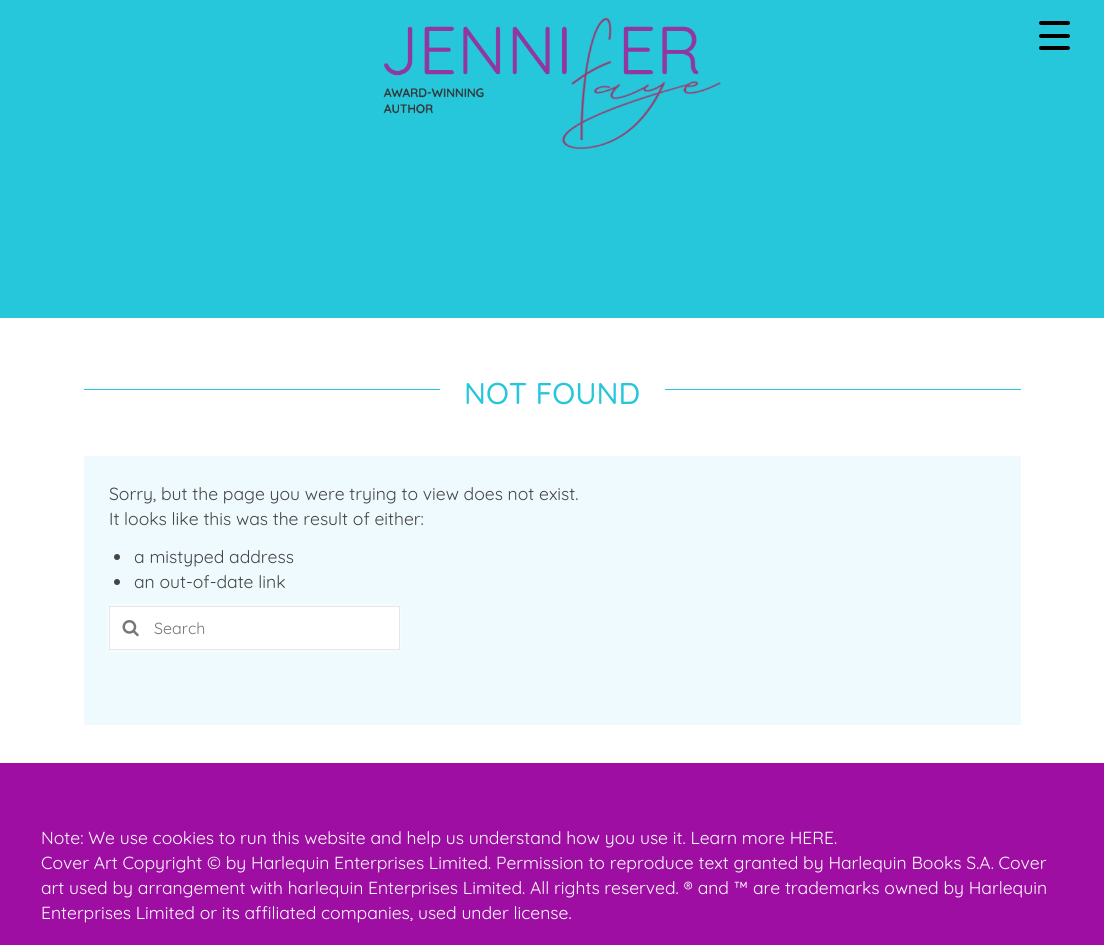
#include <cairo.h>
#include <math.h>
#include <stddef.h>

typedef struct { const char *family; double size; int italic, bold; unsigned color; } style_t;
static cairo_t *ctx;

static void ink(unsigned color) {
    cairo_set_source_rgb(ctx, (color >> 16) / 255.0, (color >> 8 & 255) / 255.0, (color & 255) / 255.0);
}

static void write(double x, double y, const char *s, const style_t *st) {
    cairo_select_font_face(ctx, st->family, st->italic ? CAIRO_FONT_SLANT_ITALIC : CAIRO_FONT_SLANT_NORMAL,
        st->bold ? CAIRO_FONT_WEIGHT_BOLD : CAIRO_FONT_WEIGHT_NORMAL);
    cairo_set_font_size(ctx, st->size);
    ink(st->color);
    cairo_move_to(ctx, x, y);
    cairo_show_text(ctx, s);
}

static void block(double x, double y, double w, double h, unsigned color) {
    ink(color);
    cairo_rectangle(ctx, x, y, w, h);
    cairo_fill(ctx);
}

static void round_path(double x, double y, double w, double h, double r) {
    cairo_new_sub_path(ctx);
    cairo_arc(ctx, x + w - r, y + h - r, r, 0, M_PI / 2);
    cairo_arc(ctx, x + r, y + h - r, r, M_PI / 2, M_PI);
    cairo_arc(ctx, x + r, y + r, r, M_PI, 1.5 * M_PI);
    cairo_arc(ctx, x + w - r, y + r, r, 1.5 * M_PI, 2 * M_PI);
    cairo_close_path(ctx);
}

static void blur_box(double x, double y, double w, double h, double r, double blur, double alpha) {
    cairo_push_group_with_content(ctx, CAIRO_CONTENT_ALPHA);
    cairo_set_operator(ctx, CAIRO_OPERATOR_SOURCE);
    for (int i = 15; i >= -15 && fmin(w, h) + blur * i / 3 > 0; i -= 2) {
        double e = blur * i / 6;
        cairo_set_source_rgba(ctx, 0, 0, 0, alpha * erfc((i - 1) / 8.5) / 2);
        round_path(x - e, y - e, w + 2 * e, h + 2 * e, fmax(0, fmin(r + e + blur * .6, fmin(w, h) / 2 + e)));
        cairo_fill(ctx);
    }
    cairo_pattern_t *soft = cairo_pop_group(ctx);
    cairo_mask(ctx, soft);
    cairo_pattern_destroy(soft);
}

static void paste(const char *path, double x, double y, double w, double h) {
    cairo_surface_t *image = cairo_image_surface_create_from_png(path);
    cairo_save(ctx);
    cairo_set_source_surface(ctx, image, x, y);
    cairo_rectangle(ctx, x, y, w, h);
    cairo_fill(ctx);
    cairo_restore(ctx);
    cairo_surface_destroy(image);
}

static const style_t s1 = {"Quicksand Medium", 30, 0, 0, 0x26c7db};
static const style_t s2 = {"Quicksand", 17.5, 0, 0, 0x444444};
static const style_t s3 = {"Quicksand", 16, 0, 0, 0x757575};
static const style_t s4 = {"Quicksand", 17.5, 0, 0, 0xffffff};

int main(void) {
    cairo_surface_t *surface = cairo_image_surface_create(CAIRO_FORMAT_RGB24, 1104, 945);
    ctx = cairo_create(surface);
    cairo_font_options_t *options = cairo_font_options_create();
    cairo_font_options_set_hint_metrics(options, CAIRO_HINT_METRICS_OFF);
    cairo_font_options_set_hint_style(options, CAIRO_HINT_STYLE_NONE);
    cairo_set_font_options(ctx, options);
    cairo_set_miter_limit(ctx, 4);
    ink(0xffffff);
    cairo_paint(ctx);
    block(0, 0, 1104, 318, 0x26c7db);
    ink(0x000000);
    round_path(1039, 34, 31, 4, 2);
    cairo_fill(ctx);
    round_path(1039, 21, 31, 4, 2);
    cairo_fill(ctx);
    round_path(1039, 46, 31, 4, 2);
    cairo_fill(ctx);
    paste("pic1.png", 383, 17, 339, 132);
    block(84, 389, 356, 1, 0x26c7db);
    write(464, 404, "NOT FOUND", &s1);
    block(665, 389, 356, 1, 0x26c7db);
    block(84, 456, 937, 269, 0xeefafd);
    write(109, 500, "Sorry, but the page you were trying to view does not exist.", &s2);
    write(109, 525, "It looks like this was the result of either:", &s2);
    cairo_new_path(ctx);
    cairo_arc(ctx, 117, 557, 3, 0, 2 * M_PI);
    cairo_fill(ctx);
    write(134, 563, "a mistyped address", &s2);
    cairo_new_path(ctx);
    cairo_arc(ctx, 117, 582, 3, 0, 2 * M_PI);
    cairo_fill(ctx);
    write(134, 588, "an out-of-date link", &s2);
    ink(0xffffff);
    blur_box(109, 606, 291, 44, 0, 2, 1);
    ink(0xffffff);
    cairo_rectangle(ctx, 109.5, 606.5, 290, 43);
    cairo_fill_preserve(ctx);
    ink(0xe7e7e7);
    cairo_set_line_width(ctx, 1);
    cairo_stroke(ctx);
    paste("pic2.png", 122, 620, 17, 17);
    write(154, 634, "Search", &s3);
    block(0, 763, 1104, 182, 0x9e0ea2);
    write(41, 844, "Note: We use cookies to run this website and help us understand how you use it. Learn more HERE.", &s4);
    write(41, 869, "Cover Art Copyright © by Harlequin Enterprises Limited. Permission to reproduce text granted by Harlequin Books S.A. Cover", &s4);
    write(41, 894, "art used by arrangement with harlequin Enterprises Limited. All rights reserved. ® and ™ are trademarks owned by Harlequin", &s4);
    write(41, 919, "Enterprises Limited or its affiliated companies, used under license.", &s4);
    cairo_surface_write_to_png(surface, "screenshot.png");
    cairo_font_options_destroy(options);
    cairo_destroy(ctx);
    cairo_surface_destroy(surface);
    return 0;
}
